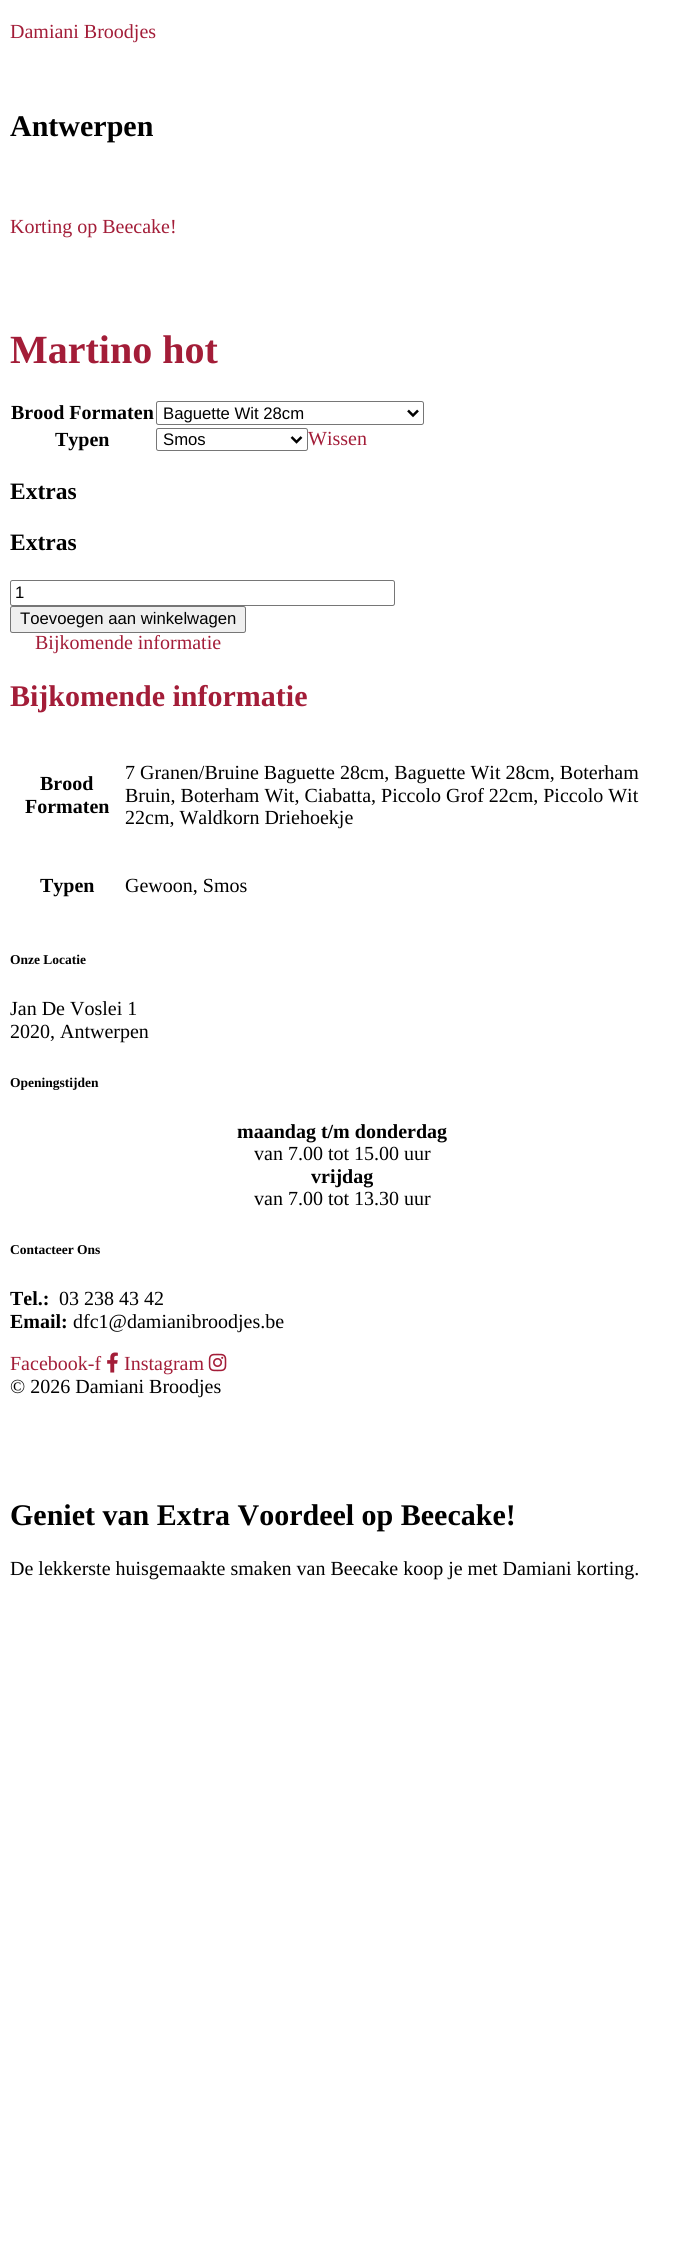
#include <cairo.h>
#include <math.h>
#include <stddef.h>

typedef struct { const char *family; double size; int italic, bold; unsigned color; } style_t;
static cairo_t *ctx;

static void ink(unsigned color) {
    cairo_set_source_rgb(ctx, (color >> 16) / 255.0, (color >> 8 & 255) / 255.0, (color & 255) / 255.0);
}

static void write(double x, double y, const char *s, const style_t *st) {
    cairo_select_font_face(ctx, st->family, st->italic ? CAIRO_FONT_SLANT_ITALIC : CAIRO_FONT_SLANT_NORMAL,
        st->bold ? CAIRO_FONT_WEIGHT_BOLD : CAIRO_FONT_WEIGHT_NORMAL);
    cairo_set_font_size(ctx, st->size);
    ink(st->color);
    cairo_move_to(ctx, x, y);
    cairo_show_text(ctx, s);
}

static void round_path(double x, double y, double w, double h, double r) {
    cairo_new_sub_path(ctx);
    cairo_arc(ctx, x + w - r, y + h - r, r, 0, M_PI / 2);
    cairo_arc(ctx, x + r, y + h - r, r, M_PI / 2, M_PI);
    cairo_arc(ctx, x + r, y + r, r, M_PI, 1.5 * M_PI);
    cairo_arc(ctx, x + w - r, y + r, r, 1.5 * M_PI, 2 * M_PI);
    cairo_close_path(ctx);
}

static void paste(const char *path, double x, double y, double w, double h) {
    cairo_surface_t *image = cairo_image_surface_create_from_png(path);
    cairo_save(ctx);
    cairo_set_source_surface(ctx, image, x, y);
    cairo_rectangle(ctx, x, y, w, h);
    cairo_fill(ctx);
    cairo_restore(ctx);
    cairo_surface_destroy(image);
}

static const style_t s1 = {"Liberation Serif", 20, 0, 0, 0xa31d38};
static const style_t s2 = {"Liberation Serif", 30, 0, 1, 0x000000};
static const style_t s3 = {"Liberation Serif", 40, 0, 1, 0xa31d38};
static const style_t s4 = {"Liberation Serif", 20, 0, 1, 0x000000};
static const style_t s5 = {"Liberation Sans", 16.7, 0, 0, 0x000000};
static const style_t s6 = {"Liberation Serif", 23.5, 0, 1, 0x000000};
static const style_t s7 = {"Liberation Serif", 30, 0, 1, 0xa31d38};
static const style_t s8 = {"Liberation Serif", 20, 0, 0, 0x000000};
static const style_t s9 = {"Liberation Serif", 13.5, 0, 1, 0x000000};

int main(void) {
    cairo_surface_t *surface = cairo_image_surface_create(CAIRO_FORMAT_RGB24, 685, 2247);
    ctx = cairo_create(surface);
    cairo_font_options_t *options = cairo_font_options_create();
    cairo_font_options_set_hint_metrics(options, CAIRO_HINT_METRICS_OFF);
    cairo_font_options_set_hint_style(options, CAIRO_HINT_STYLE_NONE);
    cairo_set_font_options(ctx, options);
    cairo_set_miter_limit(ctx, 4);
    ink(0xffffff);
    cairo_paint(ctx);
    write(10, 38, "Damiani Broodjes", &s1);
    write(10, 136, "Antwerpen", &s2);
    write(10, 233, "Korting op Beecake!", &s1);
    write(10, 363, "Martino hot", &s3);
    write(11, 419, "Brood Formaten", &s4);
    round_path(156.5, 401.5, 267, 23, 2);
    ink(0x767676);
    cairo_set_line_width(ctx, 1);
    cairo_stroke(ctx);
    cairo_new_path(ctx);
    cairo_move_to(ctx, 408, 410.5);
    cairo_line_to(ctx, 413, 415.5);
    cairo_line_to(ctx, 418, 410.5);
    ink(0x000000);
    cairo_set_line_width(ctx, 2.5);
    cairo_stroke(ctx);
    write(163, 419, "Baguette Wit 28cm", &s5);
    write(55, 446, "Typen", &s4);
    round_path(156.5, 428.5, 151, 22, 2);
    ink(0x767676);
    cairo_set_line_width(ctx, 1);
    cairo_stroke(ctx);
    cairo_new_path(ctx);
    cairo_move_to(ctx, 291.5, 437);
    cairo_line_to(ctx, 296.5, 442);
    cairo_line_to(ctx, 301.5, 437);
    ink(0x000000);
    cairo_set_line_width(ctx, 2.5);
    cairo_stroke(ctx);
    write(163, 445, "Smos", &s5);
    write(308, 445, "Wissen", &s1);
    write(10, 499, "Extras", &s6);
    write(10, 550, "Extras", &s6);
    round_path(10.5, 580.5, 384, 25, 2);
    ink(0x767676);
    cairo_set_line_width(ctx, 1);
    cairo_stroke(ctx);
    write(15, 598, "1", &s5);
    ink(0xefefef);
    round_path(10.5, 606.5, 235, 26, 2);
    cairo_fill_preserve(ctx);
    ink(0x767676);
    cairo_stroke(ctx);
    write(20, 624, "Toevoegen aan winkelwagen", &s5);
    write(35, 649, "Bijkomende informatie", &s1);
    write(10, 706, "Bijkomende informatie", &s7);
    write(40, 790, "Brood", &s4);
    write(25, 813, "Formaten", &s4);
    write(125, 779, "7 Granen/Bruine Baguette 28cm, Baguette Wit 28cm, Boterham", &s8);
    write(125, 802, "Bruin, Boterham Wit, Ciabatta, Piccolo Grof 22cm, Piccolo Wit", &s8);
    write(125, 824, "22cm, Waldkorn Driehoekje", &s8);
    write(40, 892, "Typen", &s4);
    write(125, 892, "Gewoon, Smos", &s8);
    write(10, 964, "Onze Locatie", &s9);
    write(10, 1015, "Jan De Voslei 1", &s8);
    write(10, 1038, "2020, Antwerpen", &s8);
    write(10, 1087, "Openingstijden", &s9);
    write(237, 1138, "maandag t/m donderdag", &s4);
    write(254, 1160, "van 7.00 tot 15.00 uur", &s8);
    write(311, 1183, "vrijdag", &s4);
    write(254, 1205, "van 7.00 tot 13.30 uur", &s8);
    write(10, 1254, "Contacteer Ons", &s9);
    write(10, 1305, "Tel.:", &s4);
    write(59, 1305, "03 238 43 42", &s8);
    write(10, 1328, "Email:", &s4);
    write(73, 1328, "dfc1@damianibroodjes.be", &s8);
    write(10, 1370, "Facebook-f", &s1);
    paste("pic1.png", 107, 1352, 11, 21);
    write(124, 1370, "Instagram", &s1);
    paste("pic2.png", 208, 1353, 19, 19);
    write(10, 1393, "© 2026 Damiani Broodjes", &s8);
    write(10, 1525, "Geniet van Extra Voordeel op Beecake!", &s2);
    write(10, 1575, "De lekkerste huisgemaakte smaken van Beecake koop je met Damiani korting.", &s8);
    cairo_surface_write_to_png(surface, "screenshot.png");
    cairo_font_options_destroy(options);
    cairo_destroy(ctx);
    cairo_surface_destroy(surface);
    return 0;
}
